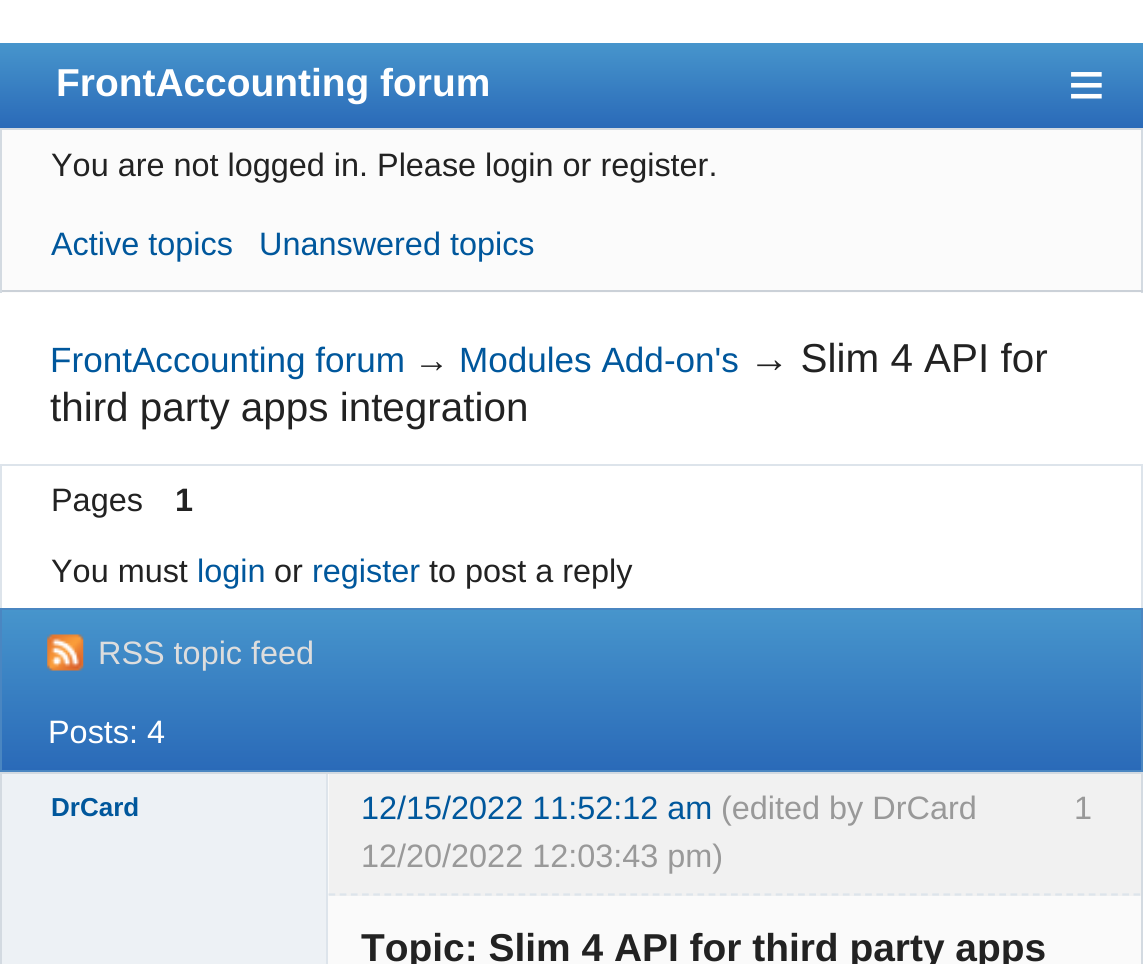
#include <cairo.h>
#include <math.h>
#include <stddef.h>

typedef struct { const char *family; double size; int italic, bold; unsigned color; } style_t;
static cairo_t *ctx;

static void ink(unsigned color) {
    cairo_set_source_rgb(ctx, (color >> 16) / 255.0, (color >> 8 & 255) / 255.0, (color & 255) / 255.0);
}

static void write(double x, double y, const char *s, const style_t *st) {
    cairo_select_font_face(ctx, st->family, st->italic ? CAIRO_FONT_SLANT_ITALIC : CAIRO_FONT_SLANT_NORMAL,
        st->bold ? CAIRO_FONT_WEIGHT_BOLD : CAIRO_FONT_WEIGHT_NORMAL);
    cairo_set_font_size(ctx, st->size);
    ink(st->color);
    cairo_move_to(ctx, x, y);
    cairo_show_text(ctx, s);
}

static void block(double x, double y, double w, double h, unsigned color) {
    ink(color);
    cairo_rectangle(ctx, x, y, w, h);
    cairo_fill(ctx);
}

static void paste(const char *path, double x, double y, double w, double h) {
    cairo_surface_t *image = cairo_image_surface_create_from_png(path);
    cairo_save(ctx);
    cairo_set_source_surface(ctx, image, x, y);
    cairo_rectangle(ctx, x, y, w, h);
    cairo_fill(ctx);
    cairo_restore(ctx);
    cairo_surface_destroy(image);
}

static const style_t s1 = {"Liberation Sans", 38.9, 0, 1, 0xffffff};
static const style_t s2 = {"Liberation Sans", 63, 0, 0, 0xffffff};
static const style_t s3 = {"Liberation Sans", 32.4, 0, 0, 0x222222};
static const style_t s4 = {"Liberation Sans", 32.4, 0, 0, 0x00579c};
static const style_t s5 = {"Liberation Sans", 35.1, 0, 0, 0x00579c};
static const style_t s6 = {"Liberation Sans", 35.1, 0, 0, 0x222222};
static const style_t s7 = {"Liberation Sans", 40.4, 0, 0, 0x222222};
static const style_t s8 = {"Liberation Sans", 32.4, 0, 1, 0x222222};
static const style_t s9 = {"Liberation Sans", 32.4, 0, 0, 0xdddddd};
static const style_t s10 = {"Liberation Sans", 32.4, 0, 0, 0xffffff};
static const style_t s11 = {"Liberation Sans", 26, 0, 1, 0x00579c};
static const style_t s12 = {"Liberation Sans", 32.4, 0, 0, 0x999999};
static const style_t s13 = {"Liberation Sans", 38.9, 0, 1, 0x222222};

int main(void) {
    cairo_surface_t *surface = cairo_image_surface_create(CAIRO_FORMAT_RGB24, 1143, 964);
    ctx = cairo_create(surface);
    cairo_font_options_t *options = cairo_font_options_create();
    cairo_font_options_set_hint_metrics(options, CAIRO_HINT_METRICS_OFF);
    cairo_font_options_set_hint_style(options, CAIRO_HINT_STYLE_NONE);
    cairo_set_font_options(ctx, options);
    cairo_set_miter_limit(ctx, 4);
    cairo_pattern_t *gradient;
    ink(0xffffff);
    cairo_paint(ctx);
    gradient = cairo_pattern_create_linear(572, 128, 572, 43);
    cairo_pattern_add_color_stop_rgba(gradient, 0, 0.165, 0.416, 0.722, 1);
    cairo_pattern_add_color_stop_rgba(gradient, 1, 0.278, 0.584, 0.8, 1);
    cairo_set_source(ctx, gradient);
    cairo_pattern_destroy(gradient);
    cairo_rectangle(ctx, 0, 43, 1143, 85);
    cairo_fill(ctx);
    write(56, 96, "FrontAccounting forum", &s1);
    write(1068, 106, "≡", &s2);
    block(2, 130, 1139, 163, 0xfbfbfb);
    block(0, 128, 1143, 2, 0xd3dae1);
    block(1141, 128, 2, 165, 0xd3dae1);
    block(0, 290, 1143, 2, 0xcbd1d8);
    block(0, 128, 2, 165, 0xd3dae1);
    write(51, 176, "You are not logged in. Please login or register.", &s3);
    write(51, 255, "Active topics", &s4);
    write(259, 255, "Unanswered topics", &s4);
    write(50, 372, "FrontAccounting forum", &s5);
    write(414, 372, "→", &s6);
    write(459, 372, "Modules Add-on's", &s5);
    write(749, 372, "→ Slim 4 API for", &s7);
    write(50, 421, "third party apps integration", &s7);
    block(0, 464, 1143, 2, 0xdde4eb);
    block(1141, 464, 2, 144, 0xdde4eb);
    block(0, 464, 2, 144, 0xdde4eb);
    write(51, 511, "Pages", &s3);
    write(175, 511, "1", &s8);
    write(51, 582, "You must", &s3);
    write(197, 582, "login", &s4);
    write(274, 582, "or", &s3);
    write(312, 582, "register", &s4);
    write(429, 582, "to post a reply", &s3);
    gradient = cairo_pattern_create_linear(572, 770, 572, 610);
    cairo_pattern_add_color_stop_rgba(gradient, 0, 0.165, 0.416, 0.722, 1);
    cairo_pattern_add_color_stop_rgba(gradient, 1, 0.278, 0.584, 0.8, 1);
    cairo_set_source(ctx, gradient);
    cairo_pattern_destroy(gradient);
    cairo_rectangle(ctx, 2, 610, 1139, 160);
    cairo_fill(ctx);
    cairo_rectangle(ctx, 1, 609, 1141, 162);
    ink(0x4a86c1);
    cairo_stroke(ctx);
    paste("pic1.png", 47, 634, 37, 37);
    write(98, 664, "RSS topic feed", &s9);
    write(48, 743, "Posts: 4", &s10);
    block(0, 772, 1143, 2, 0xd3dae1);
    block(1141, 772, 2, 192, 0xd3dae1);
    block(0, 772, 2, 192, 0xd3dae1);
    block(2, 774, 324, 190, 0xedf1f5);
    block(328, 774, 1, 122, 0xfafafa);
    block(326, 774, 2, 190, 0xdde4eb);
    block(329, 774, 812, 122, 0xf1f1f1);
    cairo_new_path(ctx);
    cairo_move_to(ctx, 328.5, 894.5);
    cairo_line_to(ctx, 1141, 894.5);
    ink(0xdde4eb);
    cairo_set_line_width(ctx, 2.2);
    cairo_set_dash(ctx, (double[]){6.75, 4.43}, 2, 0);
    cairo_stroke(ctx);
    write(51, 816, "DrCard", &s11);
    write(361, 819, "12/15/2022 11:52:12 am", &s4);
    write(721, 819, "(edited by DrCard", &s12);
    write(1074, 819, "1", &s12);
    write(361, 867, "12/20/2022 12:03:43 pm)", &s12);
    block(328, 896, 813, 68, 0xfafafa);
    write(361, 961, "Topic: Slim 4 API for third party apps", &s13);
    cairo_surface_write_to_png(surface, "screenshot.png");
    cairo_font_options_destroy(options);
    cairo_destroy(ctx);
    cairo_surface_destroy(surface);
    return 0;
}
